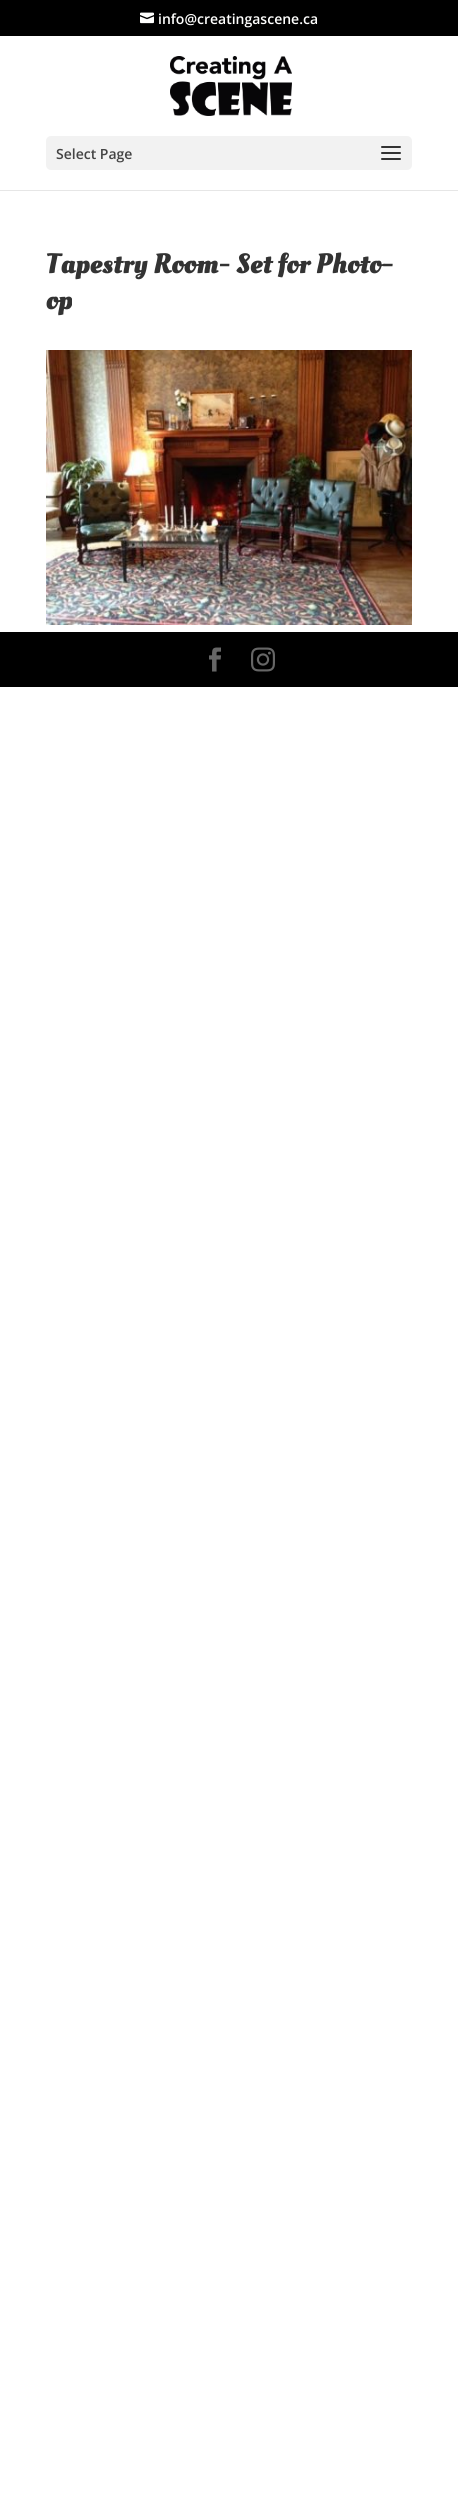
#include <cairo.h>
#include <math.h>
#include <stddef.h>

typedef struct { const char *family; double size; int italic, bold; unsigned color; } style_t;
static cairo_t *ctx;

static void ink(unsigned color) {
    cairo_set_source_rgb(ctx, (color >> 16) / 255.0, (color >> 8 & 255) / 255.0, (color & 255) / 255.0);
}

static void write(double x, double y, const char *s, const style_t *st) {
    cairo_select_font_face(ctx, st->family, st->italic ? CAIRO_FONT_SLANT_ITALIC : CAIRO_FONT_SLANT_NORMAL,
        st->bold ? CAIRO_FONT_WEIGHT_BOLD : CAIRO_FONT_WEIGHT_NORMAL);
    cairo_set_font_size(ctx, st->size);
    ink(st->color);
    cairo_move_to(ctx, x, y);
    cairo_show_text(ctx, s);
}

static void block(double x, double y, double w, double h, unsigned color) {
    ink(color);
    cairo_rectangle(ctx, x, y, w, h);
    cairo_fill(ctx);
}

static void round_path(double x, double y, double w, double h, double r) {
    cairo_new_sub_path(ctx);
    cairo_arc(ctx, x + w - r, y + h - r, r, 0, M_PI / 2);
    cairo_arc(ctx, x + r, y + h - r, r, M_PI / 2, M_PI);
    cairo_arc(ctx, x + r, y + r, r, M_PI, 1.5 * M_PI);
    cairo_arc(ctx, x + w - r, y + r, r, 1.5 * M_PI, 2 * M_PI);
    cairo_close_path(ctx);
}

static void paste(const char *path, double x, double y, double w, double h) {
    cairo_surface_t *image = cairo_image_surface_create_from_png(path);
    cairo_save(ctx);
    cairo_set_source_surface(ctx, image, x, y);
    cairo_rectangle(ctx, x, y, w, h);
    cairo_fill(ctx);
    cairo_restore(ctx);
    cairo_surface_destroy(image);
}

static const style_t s1 = {"Open Sans SemiBold", 14, 0, 0, 0xfffffe};
static const style_t s2 = {"Open Sans SemiBold", 14, 0, 0, 0x444444};
static const style_t s3 = {"Oleo Script", 28, 0, 1, 0x333333};

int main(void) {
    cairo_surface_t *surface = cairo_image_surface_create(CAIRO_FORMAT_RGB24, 458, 2506);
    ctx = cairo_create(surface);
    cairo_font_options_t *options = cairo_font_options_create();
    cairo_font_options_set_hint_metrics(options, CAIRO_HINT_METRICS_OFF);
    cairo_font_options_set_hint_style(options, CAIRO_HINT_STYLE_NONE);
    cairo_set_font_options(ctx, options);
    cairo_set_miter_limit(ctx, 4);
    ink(0xffffff);
    cairo_paint(ctx);
    block(0, 0, 458, 36, 0x000000);
    paste("pic1.png", 140, 12, 14, 12);
    write(158, 24, "info@creatingascene.ca", &s1);
    block(0, 190, 458, 1, 0xe6e6e6);
    paste("pic2.png", 170, 56, 122, 60);
    ink(0xf2f2f2);
    round_path(46, 136, 366, 34, 5);
    cairo_fill(ctx);
    write(56, 159, "Select Page", &s2);
    paste("pic3.png", 381, 146, 20, 14);
    write(46, 273, "Tapestry Room- Set for Photo-", &s3);
    write(46, 309, "op", &s3);
    paste("pic4.png", 46, 350, 366, 275);
    block(0, 632, 458, 55, 0x000000);
    paste("pic5.png", 209, 647, 12, 25);
    paste("pic6.png", 251, 647, 24, 25);
    cairo_surface_write_to_png(surface, "screenshot.png");
    cairo_font_options_destroy(options);
    cairo_destroy(ctx);
    cairo_surface_destroy(surface);
    return 0;
}
